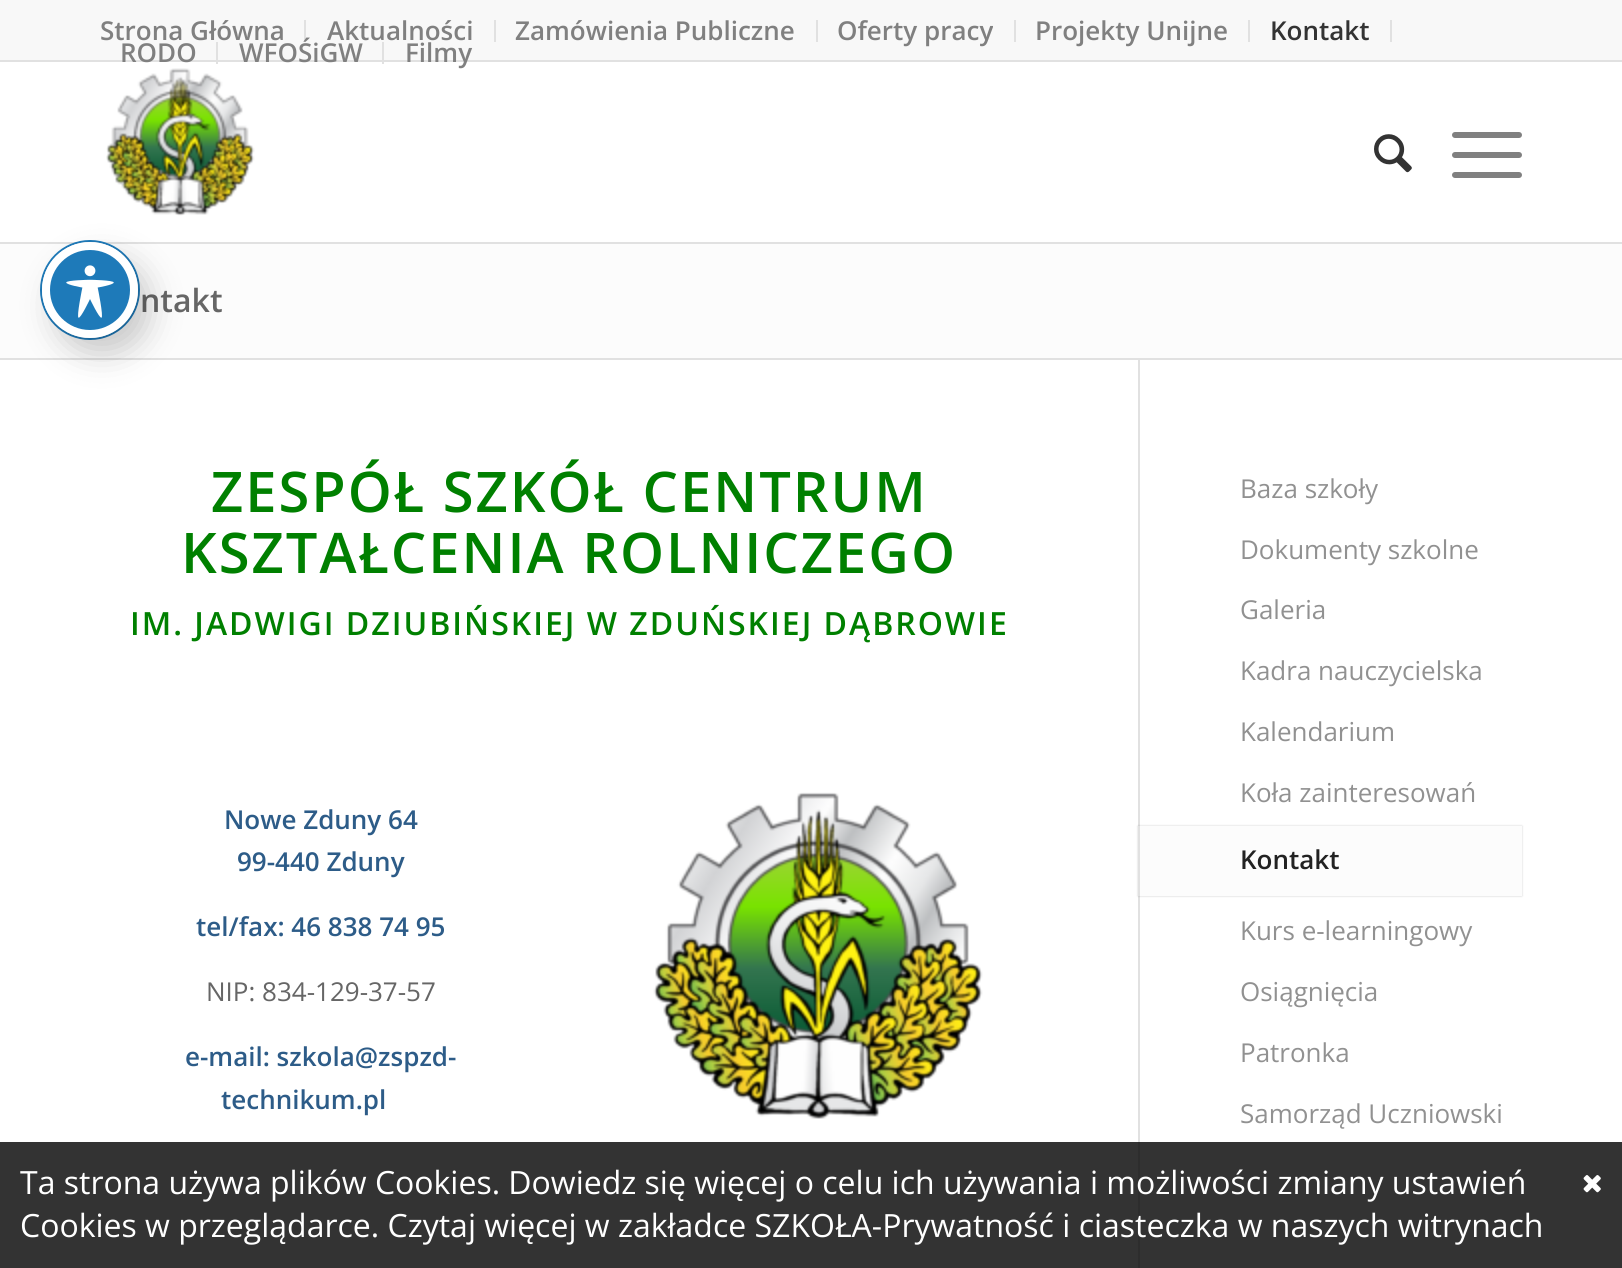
#include <cairo.h>
#include <math.h>
#include <stddef.h>

typedef struct { const char *family; double size; int italic, bold; unsigned color; } style_t;
static cairo_t *ctx;

static void ink(unsigned color) {
    cairo_set_source_rgb(ctx, (color >> 16) / 255.0, (color >> 8 & 255) / 255.0, (color & 255) / 255.0);
}

static void write(double x, double y, const char *s, const style_t *st) {
    cairo_select_font_face(ctx, st->family, st->italic ? CAIRO_FONT_SLANT_ITALIC : CAIRO_FONT_SLANT_NORMAL,
        st->bold ? CAIRO_FONT_WEIGHT_BOLD : CAIRO_FONT_WEIGHT_NORMAL);
    cairo_set_font_size(ctx, st->size);
    ink(st->color);
    cairo_move_to(ctx, x, y);
    cairo_show_text(ctx, s);
}

static void write_spaced(double x, double y, const char *s, double letter, double word) {
    cairo_move_to(ctx, x, y);
    while (*s) {
        char ch[5] = {0};
        int n = 0;
        do ch[n++] = *s++; while ((*s & 0xC0) == 0x80);
        cairo_show_text(ctx, ch);
        cairo_rel_move_to(ctx, letter + word * (*ch == ' '), 0);
    }
}

static void block(double x, double y, double w, double h, unsigned color) {
    ink(color);
    cairo_rectangle(ctx, x, y, w, h);
    cairo_fill(ctx);
}

static void round_path(double x, double y, double w, double h, double r) {
    cairo_new_sub_path(ctx);
    cairo_arc(ctx, x + w - r, y + h - r, r, 0, M_PI / 2);
    cairo_arc(ctx, x + r, y + h - r, r, M_PI / 2, M_PI);
    cairo_arc(ctx, x + r, y + r, r, M_PI, 1.5 * M_PI);
    cairo_arc(ctx, x + w - r, y + r, r, 1.5 * M_PI, 2 * M_PI);
    cairo_close_path(ctx);
}

static void blur_box(double x, double y, double w, double h, double r, double blur, double alpha) {
    cairo_push_group_with_content(ctx, CAIRO_CONTENT_ALPHA);
    cairo_set_operator(ctx, CAIRO_OPERATOR_SOURCE);
    for (int i = 15; i >= -15 && fmin(w, h) + blur * i / 3 > 0; i -= 2) {
        double e = blur * i / 6;
        cairo_set_source_rgba(ctx, 0, 0, 0, alpha * erfc((i - 1) / 8.5) / 2);
        round_path(x - e, y - e, w + 2 * e, h + 2 * e, fmax(0, fmin(r + e + blur * .6, fmin(w, h) / 2 + e)));
        cairo_fill(ctx);
    }
    cairo_pattern_t *soft = cairo_pop_group(ctx);
    cairo_mask(ctx, soft);
    cairo_pattern_destroy(soft);
}

static void paste(const char *path, double x, double y, double w, double h) {
    cairo_surface_t *image = cairo_image_surface_create_from_png(path);
    cairo_save(ctx);
    cairo_set_source_surface(ctx, image, x, y);
    cairo_rectangle(ctx, x, y, w, h);
    cairo_fill(ctx);
    cairo_restore(ctx);
    cairo_surface_destroy(image);
}

static const style_t s1 = {"Open Sans SemiBold", 26, 0, 0, 0x808080};
static const style_t s2 = {"Open Sans SemiBold", 26, 0, 0, 0x333333};
static const style_t s3 = {"Open Sans SemiBold", 32, 0, 0, 0x666666};
static const style_t s4 = {"Open Sans SemiBold", 26, 0, 0, 0x2d5c88};
static const style_t s5 = {"Open Sans", 26, 0, 0, 0x666666};
static const style_t s6 = {"Open Sans", 26, 0, 0, 0x919191};
static const style_t s7 = {"Open Sans SemiBold", 26, 0, 0, 0x222222};
static const style_t s8 = {"Open Sans", 32, 0, 0, 0xffffff};

int main(void) {
    cairo_surface_t *surface = cairo_image_surface_create(CAIRO_FORMAT_RGB24, 1622, 1268);
    ctx = cairo_create(surface);
    cairo_font_options_t *options = cairo_font_options_create();
    cairo_font_options_set_hint_metrics(options, CAIRO_HINT_METRICS_OFF);
    cairo_font_options_set_hint_style(options, CAIRO_HINT_STYLE_NONE);
    cairo_set_font_options(ctx, options);
    cairo_set_miter_limit(ctx, 4);
    ink(0xffffff);
    cairo_paint(ctx);
    block(0, 0, 1622, 60, 0xf8f8f8);
    block(0, 60, 1622, 2, 0xe1e1e1);
    block(304, 20, 2, 22, 0xe1e1e1);
    write(100, 40, "Strona Główna", &s1);
    block(494, 20, 2, 22, 0xe1e1e1);
    write(327, 40, "Aktualności", &s1);
    block(816, 20, 2, 22, 0xe1e1e1);
    write(515, 40, "Zamówienia Publiczne", &s1);
    block(1014, 20, 2, 22, 0xe1e1e1);
    write(837, 40, "Oferty pracy", &s1);
    block(1248, 20, 2, 22, 0xe1e1e1);
    write(1035, 40, "Projekty Unijne", &s1);
    block(1390, 20, 2, 22, 0xe1e1e1);
    write(1270, 40, "Kontakt", &s2);
    block(216, 42, 2, 22, 0xe1e1e1);
    write(120, 62, "RODO", &s1);
    block(382, 42, 2, 22, 0xe1e1e1);
    write(239, 62, "WFOŚiGW", &s1);
    write(405, 62, "Filmy", &s1);
    block(0, 242, 1622, 2, 0xe1e1e1);
    paste("pic1.png", 106, 68, 149, 148);
    paste("pic2.png", 1374, 134, 38, 39);
    ink(0x808080);
    round_path(1452, 152, 70, 6, 3);
    cairo_fill(ctx);
    round_path(1452, 132, 70, 6, 3);
    cairo_fill(ctx);
    round_path(1452, 172, 70, 6, 3);
    cairo_fill(ctx);
    block(0, 244, 1622, 114, 0xfcfcfc);
    write(140, 312, "ntakt", &s3);
    block(0, 358, 1622, 2, 0xe1e1e1);
    block(1138, 360, 2, 908, 0xe1e1e1);
    cairo_set_font_size(ctx, 56);
    ink(0x008000);
    write_spaced(211, 512, "ZESPÓŁ SZKÓŁ CENTRUM", 2, 0);
    write_spaced(181, 573, "KSZTAŁCENIA ROLNICZEGO", 2, 0);
    cairo_set_font_size(ctx, 32);
    write_spaced(130, 635, "IM. JADWIGI DZIUBIŃSKIEJ W ZDUŃSKIEJ DĄBROWIE", 2, 0);
    write(224, 829, "Nowe Zduny 64", &s4);
    write(237, 871, "99-440 Zduny", &s4);
    write(196, 936, "tel/fax: 46 838 74 95", &s4);
    write(206, 1001, "NIP: 834-129-37-57", &s5);
    write(185, 1066, "e-mail: szkola@zspzd-", &s4);
    write(221, 1109, "technikum.pl", &s4);
    paste("pic3.png", 653, 792, 330, 327);
    write(1240, 498, "Baza szkoły", &s6);
    write(1240, 559, "Dokumenty szkolne", &s6);
    write(1240, 619, "Galeria", &s6);
    write(1240, 680, "Kadra nauczycielska", &s6);
    write(1240, 741, "Kalendarium", &s6);
    write(1240, 802, "Koła zainteresowań", &s6);
    cairo_save(ctx);
    cairo_set_fill_rule(ctx, CAIRO_FILL_RULE_EVEN_ODD);
    cairo_new_path(ctx);
    cairo_move_to(ctx, 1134, 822);
    cairo_line_to(ctx, 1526, 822);
    cairo_line_to(ctx, 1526, 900);
    cairo_line_to(ctx, 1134, 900);
    cairo_close_path(ctx);
    cairo_move_to(ctx, 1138, 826);
    cairo_line_to(ctx, 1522, 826);
    cairo_line_to(ctx, 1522, 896);
    cairo_line_to(ctx, 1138, 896);
    cairo_close_path(ctx);
    cairo_clip(ctx);
    ink(0x000000);
    blur_box(1138, 826, 384, 70, 0, 1, 0.2);
    cairo_restore(ctx);
    block(1140, 826, 382, 70, 0xfcfcfc);
    write(1240, 869, "Kontakt", &s7);
    write(1240, 940, "Kurs e-learningowy", &s6);
    write(1240, 1001, "Osiągnięcia", &s6);
    write(1240, 1062, "Patronka", &s6);
    write(1240, 1123, "Samorząd Uczniowski", &s6);
    cairo_new_path(ctx);
    cairo_arc(ctx, 90, 290, 49, 0, 2 * M_PI);
    ink(0x1e7ab9);
    cairo_stroke(ctx);
    ink(0x000000);
    blur_box(54, 258, 96, 96, 48, 16, 0.2);
    ink(0x1e7ab9);
    cairo_arc(ctx, 90, 290, 44, 0, 2 * M_PI);
    cairo_fill_preserve(ctx);
    ink(0xffffff);
    cairo_set_line_width(ctx, 8);
    cairo_stroke(ctx);
    paste("pic4.png", 66, 265, 48, 53);
    cairo_set_source_rgba(ctx, 0, 0, 0, 0.8);
    cairo_rectangle(ctx, 0, 1142, 1622, 126);
    cairo_fill(ctx);
    write(20, 1194, "Ta strona używa plików Cookies. Dowiedz się więcej o celu ich używania i możliwości zmiany ustawień", &s8);
    write(20, 1237, "Cookies w przeglądarce. Czytaj więcej w zakładce SZKOŁA-Prywatność i ciasteczka w naszych witrynach", &s8);
    paste("pic5.png", 1583, 1175, 18, 18);
    cairo_surface_write_to_png(surface, "screenshot.png");
    cairo_font_options_destroy(options);
    cairo_destroy(ctx);
    cairo_surface_destroy(surface);
    return 0;
}
